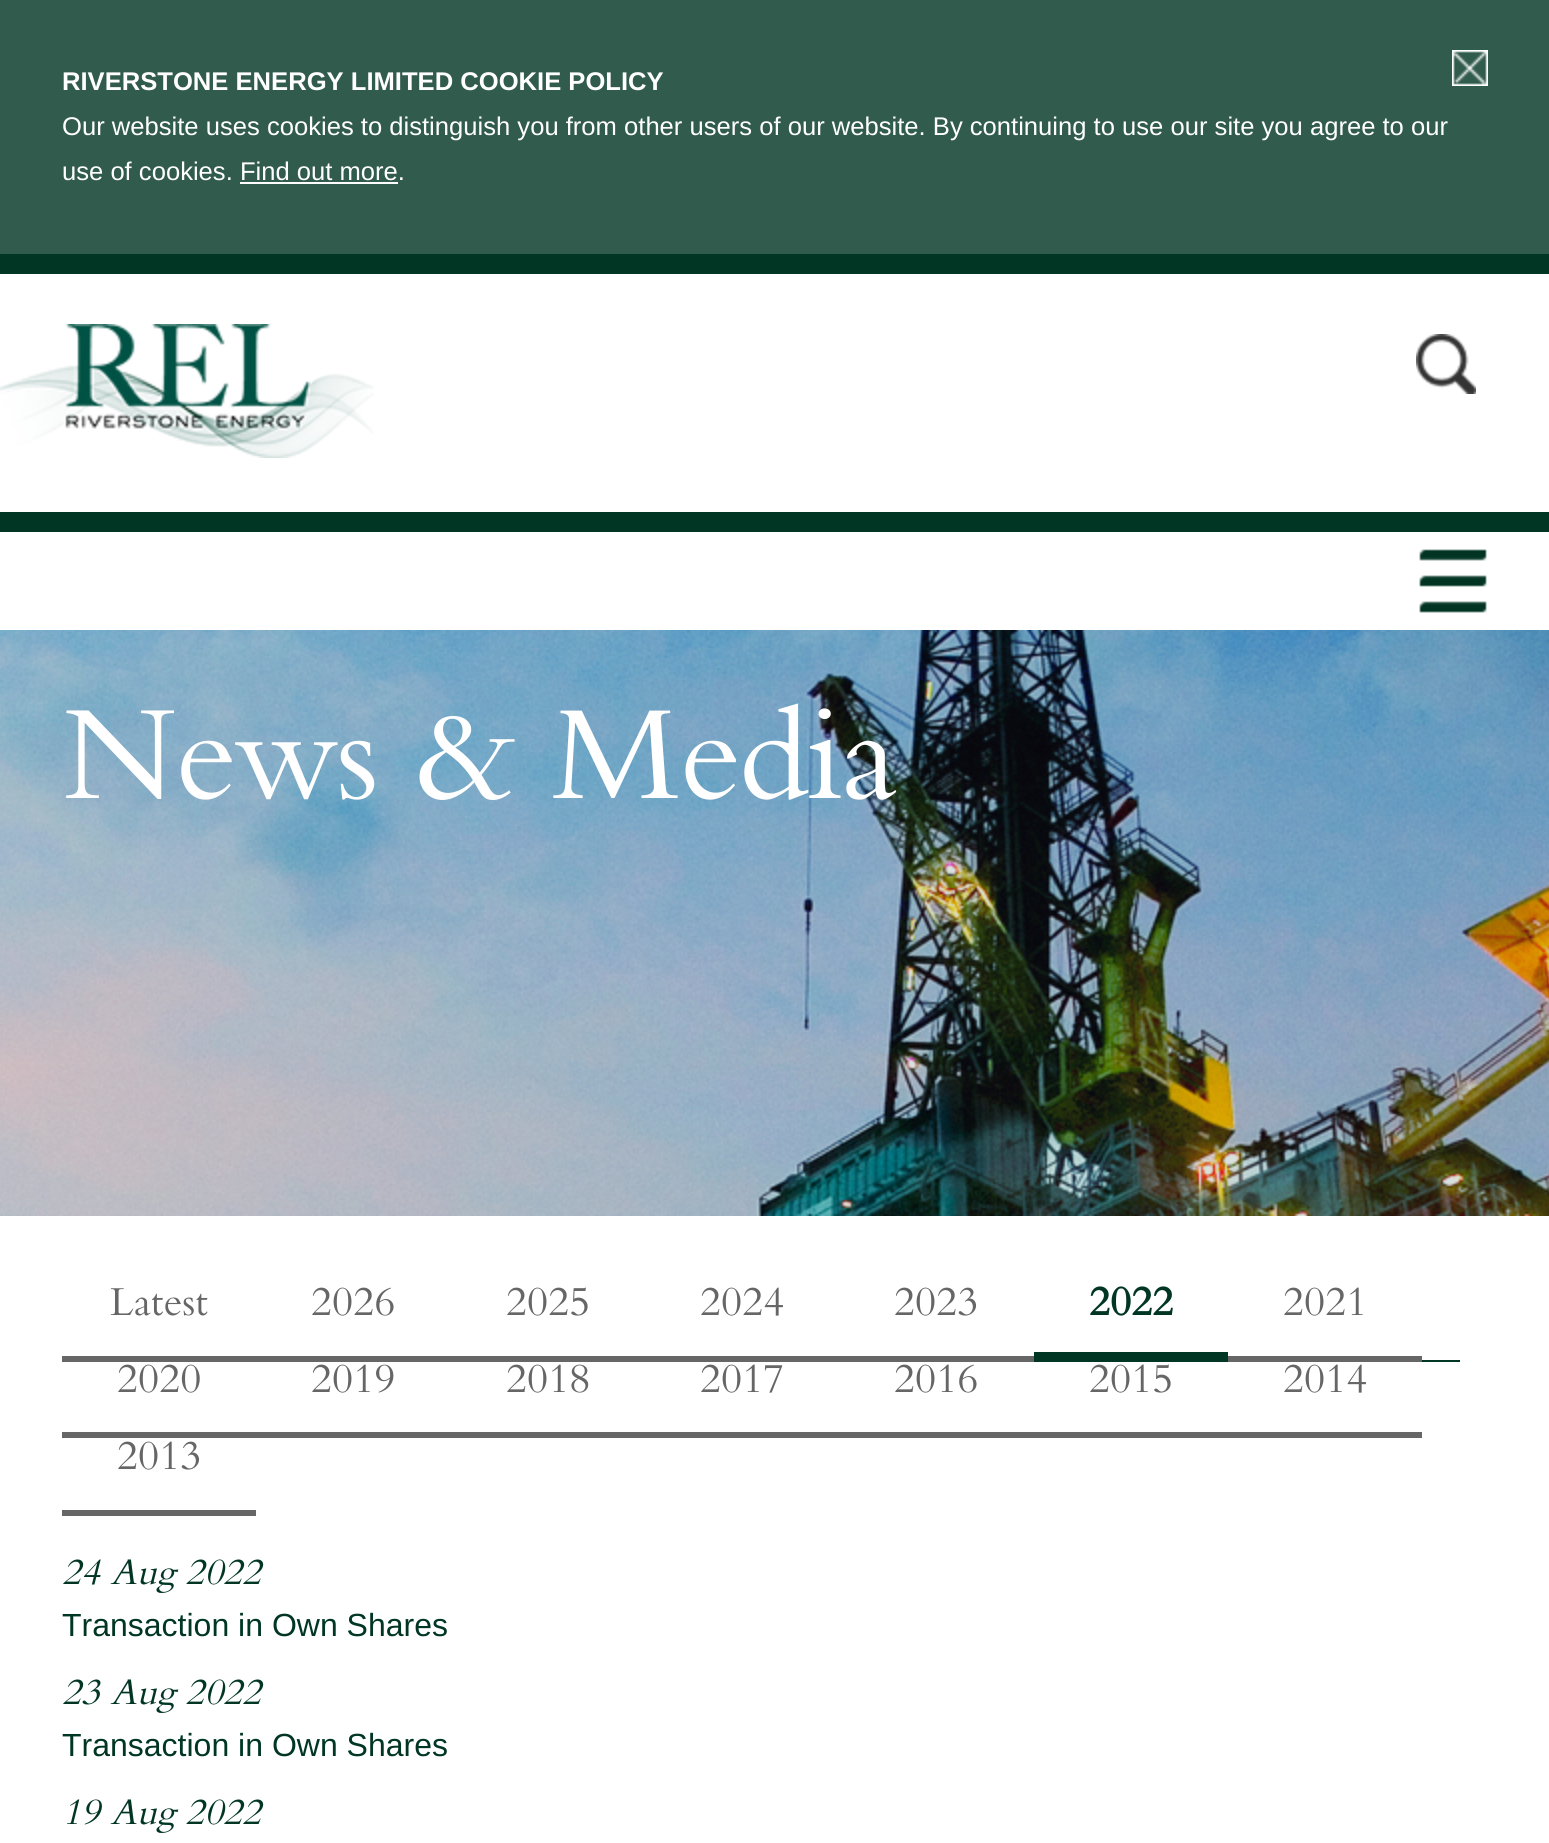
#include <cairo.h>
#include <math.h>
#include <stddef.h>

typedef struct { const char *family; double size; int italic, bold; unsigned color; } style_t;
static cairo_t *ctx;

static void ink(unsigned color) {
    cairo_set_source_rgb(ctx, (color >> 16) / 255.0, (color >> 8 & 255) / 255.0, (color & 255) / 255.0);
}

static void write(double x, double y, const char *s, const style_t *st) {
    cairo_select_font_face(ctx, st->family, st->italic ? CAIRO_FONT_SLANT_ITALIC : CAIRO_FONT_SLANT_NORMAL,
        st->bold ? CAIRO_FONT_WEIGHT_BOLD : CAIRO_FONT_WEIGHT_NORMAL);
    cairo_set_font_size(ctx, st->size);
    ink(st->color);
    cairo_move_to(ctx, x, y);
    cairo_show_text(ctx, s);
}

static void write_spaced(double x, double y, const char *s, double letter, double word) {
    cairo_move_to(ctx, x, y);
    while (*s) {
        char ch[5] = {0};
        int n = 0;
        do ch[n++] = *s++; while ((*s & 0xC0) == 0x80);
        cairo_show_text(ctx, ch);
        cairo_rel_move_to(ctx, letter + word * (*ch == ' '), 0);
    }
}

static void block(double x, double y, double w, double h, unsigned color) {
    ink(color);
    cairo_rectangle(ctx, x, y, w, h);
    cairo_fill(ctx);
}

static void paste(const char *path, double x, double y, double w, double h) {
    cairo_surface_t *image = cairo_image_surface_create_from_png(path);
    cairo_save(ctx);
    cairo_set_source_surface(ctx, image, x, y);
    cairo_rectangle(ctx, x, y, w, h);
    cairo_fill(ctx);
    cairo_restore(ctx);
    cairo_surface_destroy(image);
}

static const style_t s1 = {"Liberation Sans", 25.6, 0, 1, 0xffffff};
static const style_t s2 = {"Liberation Sans", 25.6, 0, 0, 0xffffff};
static const style_t s3 = {"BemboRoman", 43, 0, 0, 0x666666};
static const style_t s4 = {"BemboRoman", 43, 0, 1, 0x013624};
static const style_t s5 = {"BemboRoman", 38.5, 1, 0, 0x013624};
static const style_t s6 = {"Liberation Sans", 32, 0, 0, 0x013624};

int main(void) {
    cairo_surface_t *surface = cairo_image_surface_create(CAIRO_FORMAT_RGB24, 1549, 1843);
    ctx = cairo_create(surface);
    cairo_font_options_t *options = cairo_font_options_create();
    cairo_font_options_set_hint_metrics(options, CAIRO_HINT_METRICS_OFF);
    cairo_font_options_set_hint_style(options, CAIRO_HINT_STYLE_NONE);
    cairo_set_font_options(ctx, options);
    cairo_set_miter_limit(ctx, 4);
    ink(0xffffff);
    cairo_paint(ctx);
    block(0, 0, 1549, 254, 0x315b4d);
    block(0, 254, 1549, 20, 0x013624);
    paste("pic1.png", 1452, 50, 36, 36);
    write(62, 90, "RIVERSTONE ENERGY LIMITED COOKIE POLICY", &s1);
    write(62, 135, "Our website uses cookies to distinguish you from other users of our website. By continuing to use our site you agree to our", &s2);
    write(62, 180, "use of cookies. Find out more.", &s2);
    block(240, 182, 158, 2, 0xffffff);
    block(0, 512, 1549, 20, 0x013624);
    paste("pic2.png", 0, 324, 374, 134);
    paste("pic3.png", 1416, 334, 60, 60);
    paste("pic4.png", 1419, 549, 68, 64);
    paste("pic5.png", 0, 630, 1549, 586);
    cairo_select_font_face(ctx, "BemboRoman", CAIRO_FONT_SLANT_NORMAL, CAIRO_FONT_WEIGHT_NORMAL);
    cairo_set_font_size(ctx, 140.75);
    ink(0xffffff);
    write_spaced(62, 798, "News & Media", -2, 0);
    block(1422, 1360, 38, 2, 0x013624);
    block(62, 1356, 972, 6, 0x666666);
    write(110, 1315, "Latest", &s3);
    write(311, 1315, "2026", &s3);
    write(506, 1315, "2025", &s3);
    write(700, 1315, "2024", &s3);
    write(894, 1315, "2023", &s3);
    block(1034, 1352, 194, 10, 0x013624);
    write(1089, 1315, "2022", &s4);
    block(1228, 1356, 194, 6, 0x666666);
    write(1283, 1315, "2021", &s3);
    block(62, 1432, 1360, 6, 0x666666);
    write(117, 1392, "2020", &s3);
    write(311, 1392, "2019", &s3);
    write(506, 1392, "2018", &s3);
    write(700, 1392, "2017", &s3);
    write(894, 1392, "2016", &s3);
    write(1089, 1392, "2015", &s3);
    write(1283, 1392, "2014", &s3);
    block(62, 1510, 194, 6, 0x666666);
    write(117, 1469, "2013", &s3);
    write(62, 1584, "24 Aug 2022", &s5);
    write(62, 1636, "Transaction in Own Shares", &s6);
    write(62, 1704, "23 Aug 2022", &s5);
    write(62, 1756, "Transaction in Own Shares", &s6);
    write(62, 1824, "19 Aug 2022", &s5);
    cairo_surface_write_to_png(surface, "screenshot.png");
    cairo_font_options_destroy(options);
    cairo_destroy(ctx);
    cairo_surface_destroy(surface);
    return 0;
}
